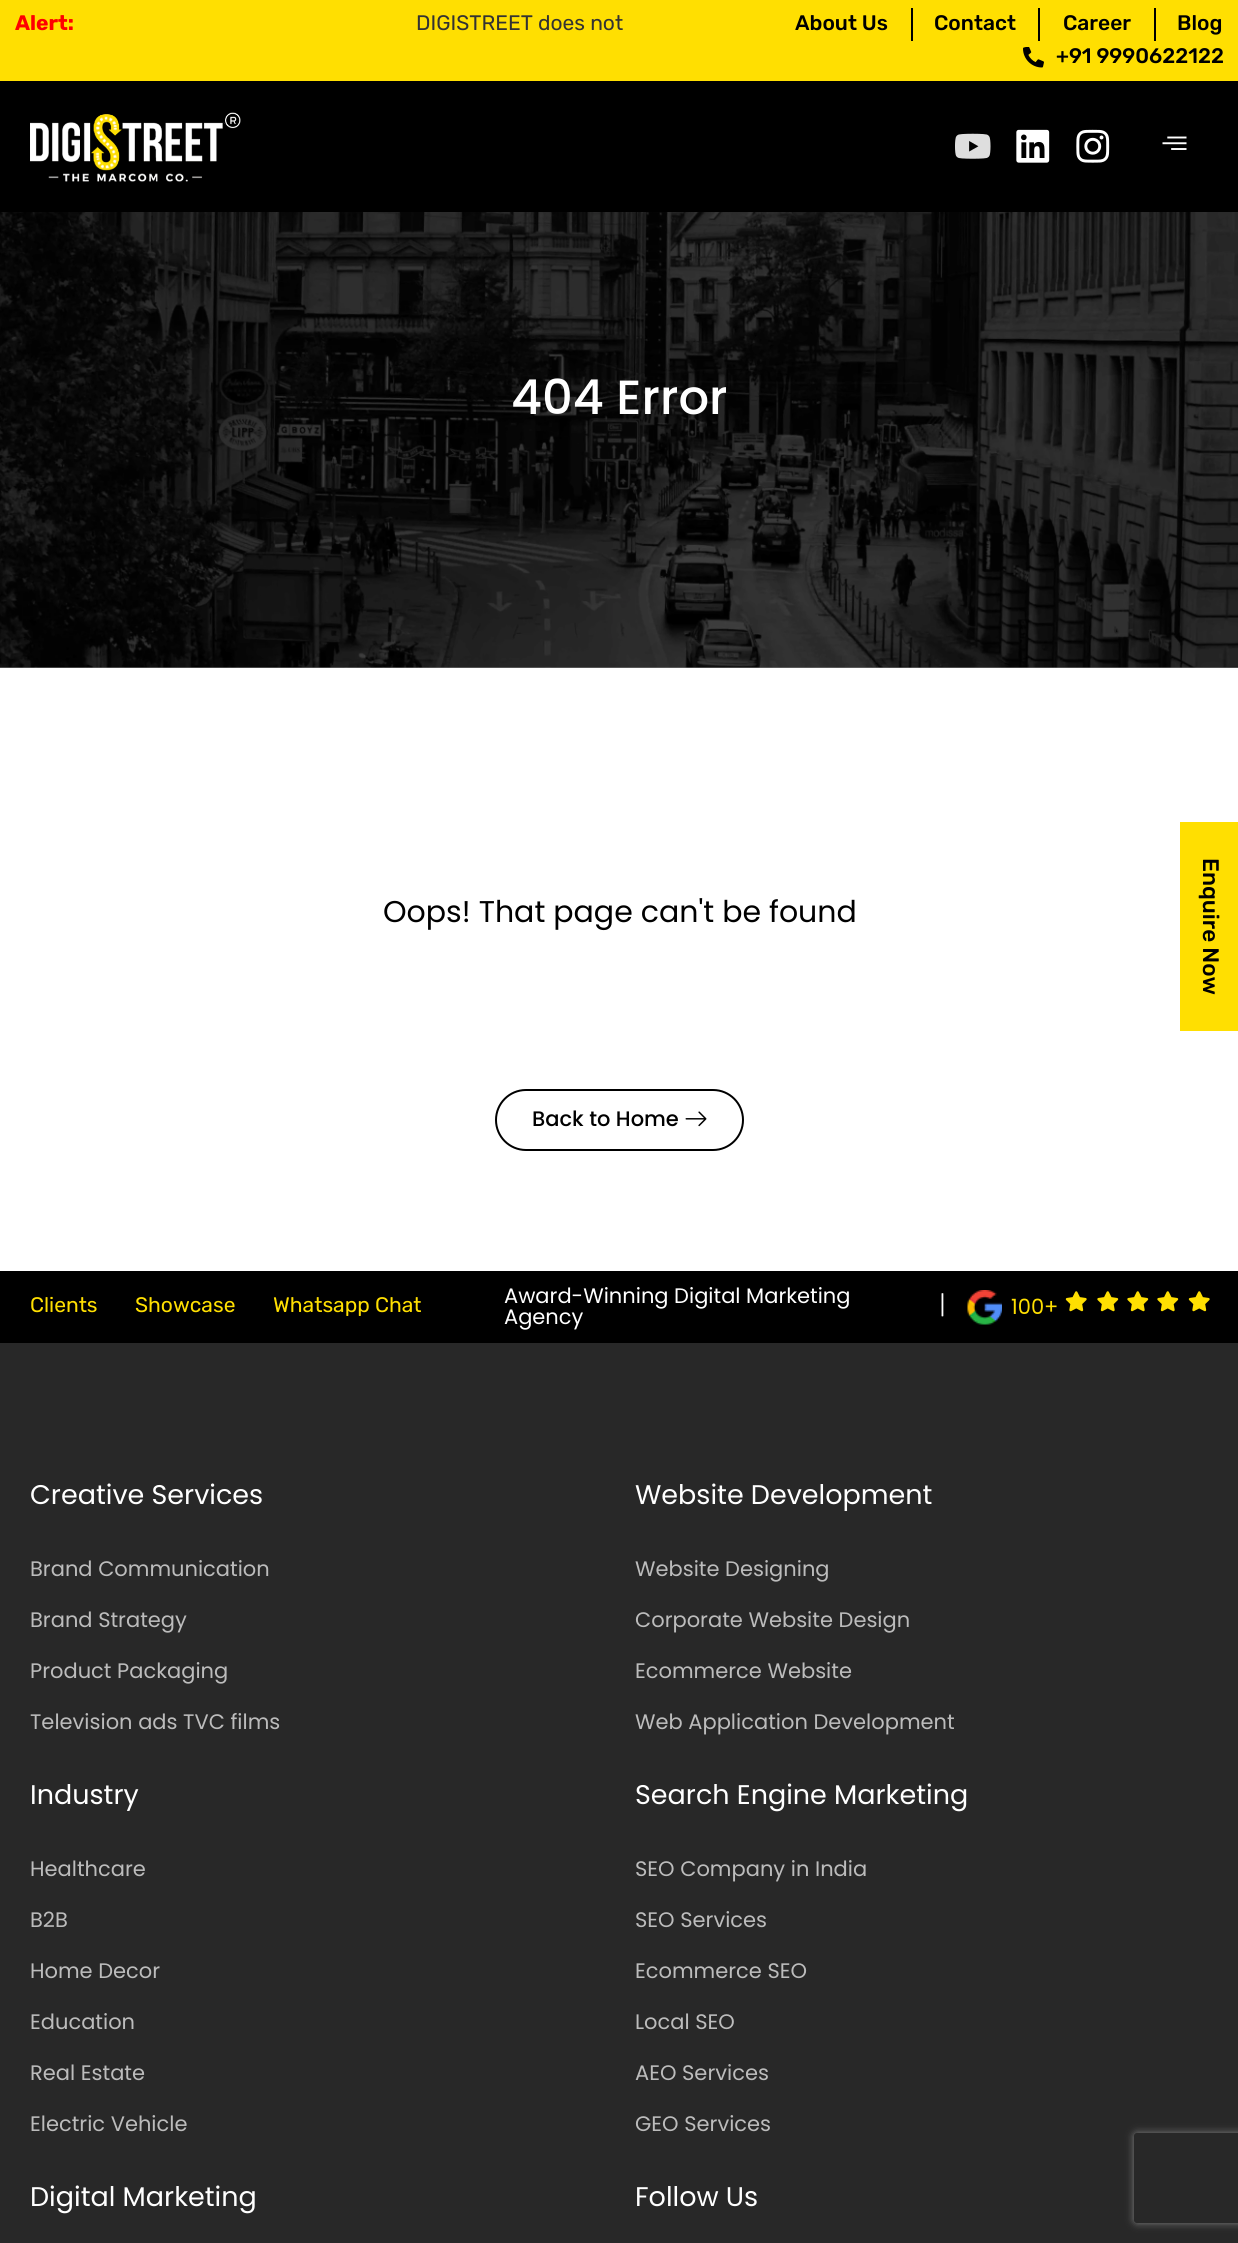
#include <cairo.h>
#include <math.h>
#include <stddef.h>

typedef struct { const char *family; double size; int italic, bold; unsigned color; } style_t;
static cairo_t *ctx;

static void ink(unsigned color) {
    cairo_set_source_rgb(ctx, (color >> 16) / 255.0, (color >> 8 & 255) / 255.0, (color & 255) / 255.0);
}

static void write(double x, double y, const char *s, const style_t *st) {
    cairo_select_font_face(ctx, st->family, st->italic ? CAIRO_FONT_SLANT_ITALIC : CAIRO_FONT_SLANT_NORMAL,
        st->bold ? CAIRO_FONT_WEIGHT_BOLD : CAIRO_FONT_WEIGHT_NORMAL);
    cairo_set_font_size(ctx, st->size);
    ink(st->color);
    cairo_move_to(ctx, x, y);
    cairo_show_text(ctx, s);
}

static void block(double x, double y, double w, double h, unsigned color) {
    ink(color);
    cairo_rectangle(ctx, x, y, w, h);
    cairo_fill(ctx);
}

static void round_path(double x, double y, double w, double h, double r) {
    cairo_new_sub_path(ctx);
    cairo_arc(ctx, x + w - r, y + h - r, r, 0, M_PI / 2);
    cairo_arc(ctx, x + r, y + h - r, r, M_PI / 2, M_PI);
    cairo_arc(ctx, x + r, y + r, r, M_PI, 1.5 * M_PI);
    cairo_arc(ctx, x + w - r, y + r, r, 1.5 * M_PI, 2 * M_PI);
    cairo_close_path(ctx);
}

static void blur_box(double x, double y, double w, double h, double r, double blur, double alpha) {
    cairo_push_group_with_content(ctx, CAIRO_CONTENT_ALPHA);
    cairo_set_operator(ctx, CAIRO_OPERATOR_SOURCE);
    for (int i = 15; i >= -15 && fmin(w, h) + blur * i / 3 > 0; i -= 2) {
        double e = blur * i / 6;
        cairo_set_source_rgba(ctx, 0, 0, 0, alpha * erfc((i - 1) / 8.5) / 2);
        round_path(x - e, y - e, w + 2 * e, h + 2 * e, fmax(0, fmin(r + e + blur * .6, fmin(w, h) / 2 + e)));
        cairo_fill(ctx);
    }
    cairo_pattern_t *soft = cairo_pop_group(ctx);
    cairo_mask(ctx, soft);
    cairo_pattern_destroy(soft);
}

static void paste(const char *path, double x, double y, double w, double h) {
    cairo_surface_t *image = cairo_image_surface_create_from_png(path);
    cairo_save(ctx);
    cairo_set_source_surface(ctx, image, x, y);
    cairo_rectangle(ctx, x, y, w, h);
    cairo_fill(ctx);
    cairo_restore(ctx);
    cairo_surface_destroy(image);
}

static const style_t s1 = {"Rubik", 21, 0, 1, 0xff0000};
static const style_t s2 = {"Rubik", 21, 0, 0, 0x333333};
static const style_t s3 = {"Rubik Medium", 21, 0, 0, 0x000000};
static const style_t s4 = {"Poppins Medium", 48, 0, 0, 0xffffff};
static const style_t s5 = {"Poppins", 30, 0, 0, 0x000000};
static const style_t s6 = {"Poppins Medium", 21, 0, 0, 0x000000};
static const style_t s7 = {"Rubik Medium", 22.5, 0, 0, 0x000000};
static const style_t s8 = {"Poppins", 27, 0, 0, 0xffffff};
static const style_t s9 = {"Poppins", 21, 0, 0, 0xbcbcbc};
static const style_t s10 = {"Rubik", 21, 0, 0, 0xffdf01};
static const style_t s11 = {"Poppins", 21, 0, 0, 0xffffff};
static const style_t s12 = {"Rubik", 21, 0, 0, 0xffffff};
static const style_t s13 = {"Poppins", 21, 0, 0, 0xffdf01};

int main(void) {
    cairo_surface_t *surface = cairo_image_surface_create(CAIRO_FORMAT_RGB24, 1238, 2243);
    ctx = cairo_create(surface);
    cairo_font_options_t *options = cairo_font_options_create();
    cairo_font_options_set_hint_metrics(options, CAIRO_HINT_METRICS_OFF);
    cairo_font_options_set_hint_style(options, CAIRO_HINT_STYLE_NONE);
    cairo_set_font_options(ctx, options);
    cairo_set_miter_limit(ctx, 4);
    ink(0xffffff);
    cairo_paint(ctx);
    block(0, 667, 1238, 1, 0x808080);
    block(0, 0, 1238, 81, 0xffdf01);
    write(15, 30, "Alert:", &s1);
    write(416, 30, "DIGISTREET does not", &s2);
    write(795, 30, "About Us", &s3);
    block(911, 8, 2, 33, 0x000000);
    write(934, 30, "Contact", &s3);
    block(1038, 8, 2, 33, 0x000000);
    write(1063, 30, "Career", &s3);
    block(1154, 8, 2, 33, 0x000000);
    write(1177, 30, "Blog", &s3);
    paste("pic1.png", 1023, 47, 21, 21);
    write(1056, 63, "+91 9990622122", &s3);
    block(0, 81, 1238, 131, 0x000000);
    paste("pic2.png", 30, 112, 211, 70);
    paste("pic3.png", 955, 133, 36, 26);
    paste("pic4.png", 1016, 129, 34, 34);
    paste("pic5.png", 1076, 129, 34, 34);
    paste("pic6.png", 1162, 136, 25, 14);
    paste("pic7.png", 0, 212, 1238, 456);
    write(511, 414, "404 Error", &s4);
    write(383, 922, "Oops! That page can't be found", &s5);
    round_path(496, 1090, 247, 60, 30);
    cairo_stroke(ctx);
    write(532, 1126, "Back to Home", &s6);
    paste("pic8.png", 685, 1111, 22, 16);
    block(0, 1343, 1238, 900, 0x282828);
    block(1180, 822, 58, 209, 0xffdf01);
    cairo_save(ctx);
    cairo_translate(ctx, 1203, 858);
    cairo_rotate(ctx, 90 * M_PI / 180);
    write(0, 0, "Enquire Now", &s7);
    cairo_restore(ctx);
    write(30, 1504, "Creative Services", &s8);
    write(30, 1576, "Brand Communication", &s9);
    write(30, 1627, "Brand Strategy", &s9);
    write(30, 1678, "Product Packaging", &s9);
    write(30, 1729, "Television ads TVC films", &s9);
    write(30, 1804, "Industry", &s8);
    write(30, 1876, "Healthcare", &s9);
    write(30, 1927, "B2B", &s9);
    write(30, 1978, "Home Decor", &s9);
    write(30, 2029, "Education", &s9);
    write(30, 2080, "Real Estate", &s9);
    write(30, 2131, "Electric Vehicle", &s9);
    write(635, 1504, "Website Development", &s8);
    write(635, 1576, "Website Designing", &s9);
    write(635, 1627, "Corporate Website Design", &s9);
    write(635, 1678, "Ecommerce Website", &s9);
    write(635, 1729, "Web Application Development", &s9);
    write(635, 1804, "Search Engine Marketing", &s8);
    write(635, 1876, "SEO Company in India", &s9);
    write(635, 1927, "SEO Services", &s9);
    write(635, 1978, "Ecommerce SEO", &s9);
    write(635, 2029, "Local SEO", &s9);
    write(635, 2080, "AEO Services", &s9);
    write(635, 2131, "GEO Services", &s9);
    write(30, 2206, "Digital Marketing", &s8);
    write(635, 2206, "Follow Us", &s8);
    block(0, 1271, 1238, 72, 0x000000);
    write(30, 1312, "Clients", &s10);
    write(135, 1312, "Showcase", &s10);
    write(273, 1312, "Whatsapp Chat", &s10);
    write(504, 1303, "Award-Winning Digital Marketing", &s11);
    write(504, 1324, "Agency", &s11);
    write(940, 1312, "|", &s12);
    paste("pic9.png", 967, 1290, 35, 35);
    write(1011, 1314, "100+", &s13);
    paste("pic10.png", 1065, 1291, 22, 21);
    paste("pic11.png", 1097, 1291, 22, 21);
    paste("pic11.png", 1127, 1291, 22, 21);
    paste("pic11.png", 1157, 1291, 22, 21);
    paste("pic10.png", 1188, 1291, 22, 21);
    cairo_save(ctx);
    cairo_set_fill_rule(ctx, CAIRO_FILL_RULE_EVEN_ODD);
    cairo_new_path(ctx);
    cairo_move_to(ctx, 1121, 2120);
    cairo_line_to(ctx, 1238, 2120);
    cairo_line_to(ctx, 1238, 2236);
    cairo_line_to(ctx, 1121, 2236);
    cairo_close_path(ctx);
    cairo_move_to(ctx, 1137, 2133);
    cairo_line_to(ctx, 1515, 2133);
    cairo_curve_to(ctx, 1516.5, 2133, 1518, 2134.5, 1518, 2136);
    cairo_line_to(ctx, 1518, 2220);
    cairo_curve_to(ctx, 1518, 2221.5, 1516.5, 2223, 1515, 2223);
    cairo_line_to(ctx, 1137, 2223);
    cairo_curve_to(ctx, 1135.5, 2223, 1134, 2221.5, 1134, 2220);
    cairo_line_to(ctx, 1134, 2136);
    cairo_curve_to(ctx, 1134, 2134.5, 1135.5, 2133, 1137, 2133);
    cairo_close_path(ctx);
    cairo_clip(ctx);
    ink(0x808080);
    blur_box(1134, 2133, 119, 90, 3, 4, 1);
    cairo_restore(ctx);
    cairo_surface_write_to_png(surface, "screenshot.png");
    cairo_font_options_destroy(options);
    cairo_destroy(ctx);
    cairo_surface_destroy(surface);
    return 0;
}
